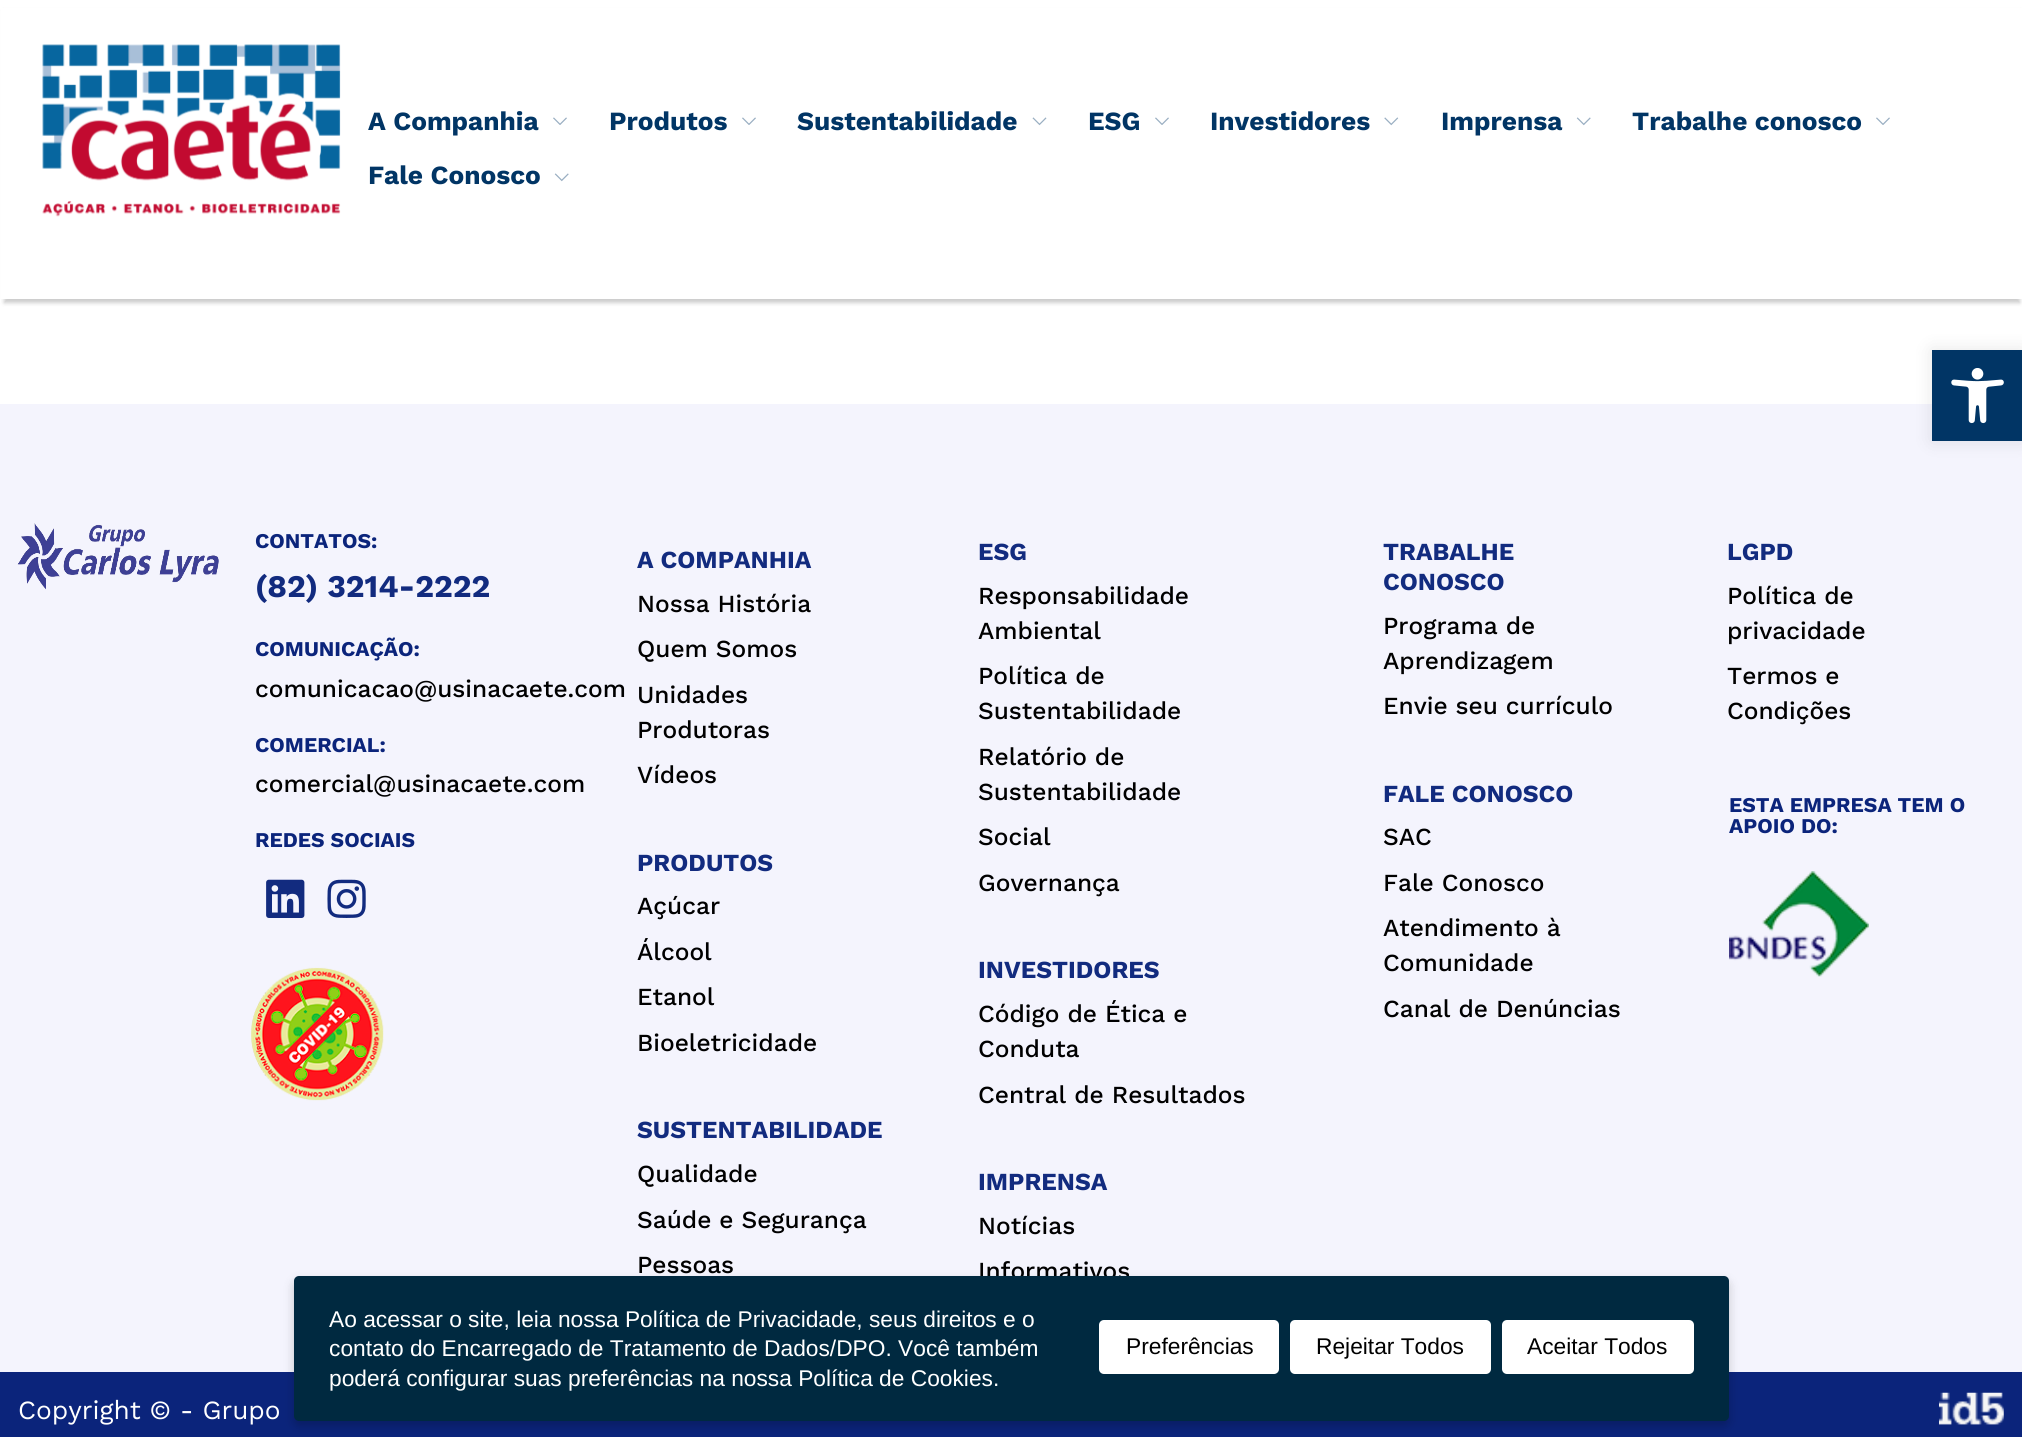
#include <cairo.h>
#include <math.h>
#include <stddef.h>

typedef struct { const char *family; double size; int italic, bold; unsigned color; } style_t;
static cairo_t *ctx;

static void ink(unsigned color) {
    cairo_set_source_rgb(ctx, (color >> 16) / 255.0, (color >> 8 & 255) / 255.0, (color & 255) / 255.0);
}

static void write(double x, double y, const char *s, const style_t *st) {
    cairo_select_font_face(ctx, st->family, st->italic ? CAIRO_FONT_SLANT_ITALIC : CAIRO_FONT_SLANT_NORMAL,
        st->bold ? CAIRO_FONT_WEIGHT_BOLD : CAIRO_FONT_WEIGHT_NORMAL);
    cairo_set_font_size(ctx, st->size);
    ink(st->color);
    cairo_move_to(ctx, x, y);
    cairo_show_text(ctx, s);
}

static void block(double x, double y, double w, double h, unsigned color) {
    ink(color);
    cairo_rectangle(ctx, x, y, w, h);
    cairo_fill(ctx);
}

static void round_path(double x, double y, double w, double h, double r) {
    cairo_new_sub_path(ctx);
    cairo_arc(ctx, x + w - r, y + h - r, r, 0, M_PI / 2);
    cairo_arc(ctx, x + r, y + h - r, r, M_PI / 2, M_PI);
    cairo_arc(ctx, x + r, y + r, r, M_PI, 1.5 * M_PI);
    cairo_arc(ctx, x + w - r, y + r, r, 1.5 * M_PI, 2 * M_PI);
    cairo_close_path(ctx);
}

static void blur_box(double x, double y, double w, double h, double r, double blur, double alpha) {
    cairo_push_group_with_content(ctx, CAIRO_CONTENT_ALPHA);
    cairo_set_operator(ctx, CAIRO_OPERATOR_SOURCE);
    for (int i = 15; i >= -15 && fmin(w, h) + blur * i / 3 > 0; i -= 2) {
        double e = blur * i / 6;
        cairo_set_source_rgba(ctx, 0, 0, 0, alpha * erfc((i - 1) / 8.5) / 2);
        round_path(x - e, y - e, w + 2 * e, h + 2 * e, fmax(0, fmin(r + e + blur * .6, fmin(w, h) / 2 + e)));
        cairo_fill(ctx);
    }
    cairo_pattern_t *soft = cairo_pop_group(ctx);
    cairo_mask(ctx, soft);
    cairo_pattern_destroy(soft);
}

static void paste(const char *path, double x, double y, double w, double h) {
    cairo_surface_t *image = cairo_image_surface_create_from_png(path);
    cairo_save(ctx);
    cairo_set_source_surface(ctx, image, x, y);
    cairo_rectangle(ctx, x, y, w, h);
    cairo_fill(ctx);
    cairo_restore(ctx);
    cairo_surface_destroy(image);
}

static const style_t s1 = {"Work Sans", 26.25, 0, 1, 0x013565};
static const style_t s2 = {"Work Sans", 21, 0, 1, 0x0b247b};
static const style_t s3 = {"Work Sans", 31.5, 0, 1, 0x122b7f};
static const style_t s4 = {"Work Sans Medium", 24.5, 0, 0, 0x000000};
static const style_t s5 = {"Work Sans", 24.5, 0, 1, 0x122b7f};
static const style_t s6 = {"Work Sans", 26.25, 0, 0, 0xffffff};
static const style_t s7 = {"Liberation Sans", 22.75, 0, 0, 0xffffff};
static const style_t s8 = {"Liberation Sans", 22.75, 0, 0, 0x000000};

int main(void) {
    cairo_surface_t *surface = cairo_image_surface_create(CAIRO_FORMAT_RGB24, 2022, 1437);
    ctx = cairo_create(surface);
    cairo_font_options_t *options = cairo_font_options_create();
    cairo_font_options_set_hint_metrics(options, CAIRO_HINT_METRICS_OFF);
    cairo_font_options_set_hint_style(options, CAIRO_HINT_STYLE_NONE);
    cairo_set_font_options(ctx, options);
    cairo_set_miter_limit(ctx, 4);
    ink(0xffffff);
    cairo_paint(ctx);
    ink(0x000000);
    blur_box(4, 11, 2016, 292, 0, 2, 0.2);
    block(1, 8, 2021, 291, 0xffffff);
    paste("pic1.png", 42, 44, 299, 173);
    write(368, 130, "A Companhia", &s1);
    paste("pic2.png", 553, 117, 14, 8);
    write(609, 130, "Produtos", &s1);
    paste("pic2.png", 742, 117, 14, 8);
    write(797, 130, "Sustentabilidade", &s1);
    paste("pic3.png", 1032, 117, 15, 9);
    write(1088, 130, "ESG", &s1);
    paste("pic2.png", 1155, 117, 14, 8);
    write(1210, 130, "Investidores", &s1);
    paste("pic4.png", 1384, 117, 15, 9);
    write(1441, 130, "Imprensa", &s1);
    paste("pic5.png", 1576, 117, 15, 9);
    write(1632, 130, "Trabalhe conosco", &s1);
    paste("pic2.png", 1876, 117, 14, 8);
    write(368, 184, "Fale Conosco", &s1);
    paste("pic5.png", 554, 173, 15, 9);
    block(0, 404, 2022, 968, 0xf4f4fd);
    paste("pic6.png", 17, 523, 202, 67);
    write(255, 548, "CONTATOS:", &s2);
    write(255, 597, "(82) 3214-2222", &s3);
    write(255, 656, "COMUNICAÇÃO:", &s2);
    write(255, 697, "comunicacao@usinacaete.com", &s4);
    write(255, 752, "COMERCIAL:", &s2);
    write(255, 792, "comercial@usinacaete.com", &s4);
    write(255, 847, "REDES SOCIAIS", &s2);
    paste("pic7.png", 266, 879, 39, 39);
    paste("pic8.png", 327, 879, 39, 39);
    paste("pic9.png", 251, 967, 133, 134);
    write(637, 568, "A COMPANHIA", &s5);
    write(637, 612, "Nossa História", &s4);
    write(637, 657, "Quem Somos", &s4);
    write(637, 703, "Unidades", &s4);
    write(637, 738, "Produtoras", &s4);
    write(637, 783, "Vídeos", &s4);
    write(637, 871, "PRODUTOS", &s5);
    write(637, 914, "Açúcar", &s4);
    write(637, 960, "Álcool", &s4);
    write(637, 1005, "Etanol", &s4);
    write(637, 1051, "Bioeletricidade", &s4);
    write(637, 1138, "SUSTENTABILIDADE", &s5);
    write(637, 1182, "Qualidade", &s4);
    write(637, 1228, "Saúde e Segurança", &s4);
    write(637, 1273, "Pessoas", &s4);
    write(978, 560, "ESG", &s5);
    write(978, 604, "Responsabilidade", &s4);
    write(978, 639, "Ambiental", &s4);
    write(978, 684, "Política de", &s4);
    write(978, 719, "Sustentabilidade", &s4);
    write(978, 765, "Relatório de", &s4);
    write(978, 800, "Sustentabilidade", &s4);
    write(978, 845, "Social", &s4);
    write(978, 891, "Governança", &s4);
    write(978, 978, "INVESTIDORES", &s5);
    write(978, 1022, "Código de Ética e", &s4);
    write(978, 1057, "Conduta", &s4);
    write(978, 1103, "Central de Resultados", &s4);
    write(978, 1190, "IMPRENSA", &s5);
    write(978, 1234, "Notícias", &s4);
    write(978, 1279, "Informativos", &s4);
    write(1383, 560, "TRABALHE", &s5);
    write(1383, 590, "CONOSCO", &s5);
    write(1383, 634, "Programa de", &s4);
    write(1383, 669, "Aprendizagem", &s4);
    write(1383, 714, "Envie seu currículo", &s4);
    write(1383, 802, "FALE CONOSCO", &s5);
    write(1383, 845, "SAC", &s4);
    write(1383, 891, "Fale Conosco", &s4);
    write(1383, 936, "Atendimento à", &s4);
    write(1383, 971, "Comunidade", &s4);
    write(1383, 1017, "Canal de Denúncias", &s4);
    write(1727, 560, "LGPD", &s5);
    write(1727, 604, "Política de", &s4);
    write(1727, 639, "privacidade", &s4);
    write(1727, 684, "Termos e", &s4);
    write(1727, 719, "Condições", &s4);
    write(1729, 812, "ESTA EMPRESA TEM O", &s2);
    write(1729, 833, "APOIO DO:", &s2);
    paste("pic10.png", 1729, 871, 140, 106);
    block(0, 1372, 2022, 65, 0x0b247b);
    write(18, 1419, "Copyright © - Grupo", &s6);
    paste("pic11.png", 1939, 1392, 65, 33);
    ink(0x000000);
    blur_box(1932, 350, 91, 91, 0, 9, 0.1);
    block(1932, 350, 90, 91, 0x013565);
    paste("pic12.png", 1951, 368, 53, 56);
    ink(0x000000);
    blur_box(294, 1281, 1435, 145, 5, 5, 0.2);
    ink(0x002940);
    round_path(294, 1276, 1435, 145, 5);
    cairo_fill(ctx);
    write(329, 1327, "Ao acessar o site, leia nossa Política de Privacidade, seus direitos e o", &s7);
    write(329, 1356, "contato do Encarregado de Tratamento de Dados/DPO. Você também", &s7);
    write(329, 1386, "poderá configurar suas preferências na nossa Política de Cookies.", &s7);
    round_path(1099, 1320, 180, 54, 5);
    cairo_fill(ctx);
    write(1126, 1354, "Preferências", &s8);
    ink(0xffffff);
    round_path(1290, 1320, 201, 54, 5);
    cairo_fill(ctx);
    write(1316, 1354, "Rejeitar Todos", &s8);
    ink(0xffffff);
    round_path(1502, 1320, 192, 54, 5);
    cairo_fill(ctx);
    write(1527, 1354, "Aceitar Todos", &s8);
    cairo_surface_write_to_png(surface, "screenshot.png");
    cairo_font_options_destroy(options);
    cairo_destroy(ctx);
    cairo_surface_destroy(surface);
    return 0;
}
